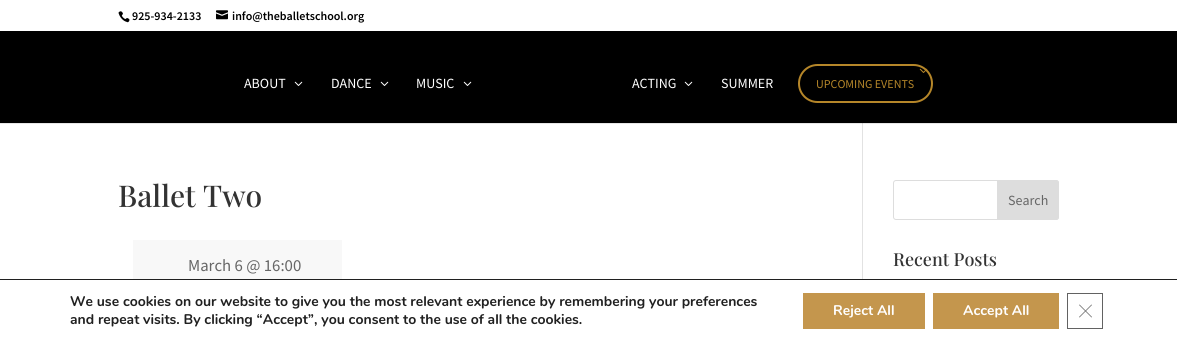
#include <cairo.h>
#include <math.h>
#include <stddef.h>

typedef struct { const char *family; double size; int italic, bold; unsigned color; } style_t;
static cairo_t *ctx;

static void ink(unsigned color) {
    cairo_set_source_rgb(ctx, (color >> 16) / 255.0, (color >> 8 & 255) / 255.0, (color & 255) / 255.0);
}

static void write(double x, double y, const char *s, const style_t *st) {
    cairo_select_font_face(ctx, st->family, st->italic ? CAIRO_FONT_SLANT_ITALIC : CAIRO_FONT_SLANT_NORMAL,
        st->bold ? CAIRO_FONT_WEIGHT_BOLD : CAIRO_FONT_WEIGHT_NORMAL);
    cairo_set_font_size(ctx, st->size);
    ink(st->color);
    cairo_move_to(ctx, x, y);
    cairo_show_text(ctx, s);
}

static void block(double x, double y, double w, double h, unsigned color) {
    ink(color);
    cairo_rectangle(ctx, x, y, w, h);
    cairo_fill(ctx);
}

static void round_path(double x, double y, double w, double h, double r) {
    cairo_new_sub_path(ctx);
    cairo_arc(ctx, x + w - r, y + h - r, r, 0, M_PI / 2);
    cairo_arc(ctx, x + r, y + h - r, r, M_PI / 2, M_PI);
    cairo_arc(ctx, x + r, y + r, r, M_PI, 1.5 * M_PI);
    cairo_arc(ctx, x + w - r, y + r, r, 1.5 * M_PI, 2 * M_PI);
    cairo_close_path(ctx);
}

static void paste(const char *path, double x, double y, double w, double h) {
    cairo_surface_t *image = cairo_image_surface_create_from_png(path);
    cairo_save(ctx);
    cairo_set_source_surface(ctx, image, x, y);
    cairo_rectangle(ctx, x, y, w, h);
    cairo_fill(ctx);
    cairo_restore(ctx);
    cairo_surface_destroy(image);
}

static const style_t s1 = {"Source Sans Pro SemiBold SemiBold", 12, 0, 0, 0x000000};
static const style_t s2 = {"Source Sans Pro", 14, 0, 0, 0xffffff};
static const style_t s3 = {"Source Sans Pro", 12, 0, 0, 0xb58629};
static const style_t s4 = {"Playfair Display Medium", 30, 0, 0, 0x333333};
static const style_t s5 = {"Source Sans Pro", 16.75, 0, 0, 0x666666};
static const style_t s6 = {"Source Sans Pro", 14, 0, 0, 0x666666};
static const style_t s7 = {"Playfair Display Medium", 18, 0, 0, 0x333333};
static const style_t s8 = {"Nunito", 14, 0, 1, 0x202020};
static const style_t s9 = {"Nunito", 14, 0, 1, 0xffffff};

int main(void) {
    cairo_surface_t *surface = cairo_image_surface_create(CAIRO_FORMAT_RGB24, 1177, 342);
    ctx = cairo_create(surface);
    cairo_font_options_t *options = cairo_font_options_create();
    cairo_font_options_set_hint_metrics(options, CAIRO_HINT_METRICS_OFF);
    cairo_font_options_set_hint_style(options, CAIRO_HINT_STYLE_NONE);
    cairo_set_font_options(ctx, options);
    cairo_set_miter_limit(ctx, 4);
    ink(0xffffff);
    cairo_paint(ctx);
    block(0, 123, 1177, 1, 0xe6e6e6);
    paste("pic1.png", 118, 11, 12, 12);
    write(132, 20, "925-934-2133", &s1);
    paste("pic2.png", 216, 10, 12, 10);
    write(232, 20, "info@theballetschool.org", &s1);
    block(862, 122, 1, 157, 0xe2e2e2);
    block(0, 31, 1177, 92, 0x000000);
    write(244, 88, "ABOUT", &s2);
    paste("pic3.png", 294, 81, 9, 5);
    write(331, 88, "DANCE", &s2);
    paste("pic3.png", 380, 81, 9, 5);
    write(416, 88, "MUSIC", &s2);
    paste("pic3.png", 463, 81, 9, 5);
    write(632, 88, "ACTING", &s2);
    paste("pic3.png", 684, 81, 9, 5);
    write(721, 88, "SUMMER", &s2);
    round_path(799, 65, 133, 37, 18.5);
    ink(0xb58629);
    cairo_stroke(ctx);
    paste("pic4.png", 919, 68, 9, 5);
    write(816, 88, "UPCOMING EVENTS", &s3);
    block(862, 123, 1, 1, 0xcbcbcb);
    write(118, 207, "Ballet Two", &s4);
    cairo_set_source_rgba(ctx, 0.4, 0.4, 0.4, 0.05);
    cairo_rectangle(ctx, 133, 240, 209, 39);
    cairo_fill(ctx);
    write(188, 271, "March 6 @ 16:00", &s5);
    round_path(893.5, 180.5, 165, 39, 2.5);
    ink(0xdddddd);
    cairo_set_line_width(ctx, 1);
    cairo_stroke(ctx);
    cairo_new_path(ctx);
    cairo_move_to(ctx, 997.5, 180.5);
    cairo_line_to(ctx, 1056, 180.5);
    cairo_curve_to(ctx, 1057.5, 180.5, 1058.5, 181.5, 1058.5, 183);
    cairo_line_to(ctx, 1058.5, 217);
    cairo_curve_to(ctx, 1058.5, 218.5, 1057.5, 219.5, 1056, 219.5);
    cairo_line_to(ctx, 997.5, 219.5);
    cairo_close_path(ctx);
    cairo_fill_preserve(ctx);
    cairo_stroke(ctx);
    write(1008, 205, "Search", &s6);
    write(893, 266, "Recent Posts", &s7);
    block(0, 279, 1177, 1, 0x202020);
    write(70, 306, "We use cookies on our website to give you the most relevant experience by remembering your preferences", &s8);
    write(70, 324, "and repeat visits. By clicking “Accept”, you consent to the use of all the cookies.", &s8);
    block(803, 293, 122, 36, 0xc4964d);
    write(833, 315, "Reject All", &s9);
    block(933, 293, 126, 36, 0xc4964d);
    write(963, 315, "Accept All", &s9);
    cairo_rectangle(ctx, 1067.5, 293.5, 35, 35);
    ink(0x626262);
    cairo_stroke(ctx);
    cairo_new_path(ctx);
    cairo_move_to(ctx, 1091.5, 304.5);
    cairo_line_to(ctx, 1092, 305);
    cairo_line_to(ctx, 1079.5, 317.5);
    cairo_line_to(ctx, 1079, 317);
    cairo_close_path(ctx);
    cairo_fill(ctx);
    cairo_new_path(ctx);
    cairo_move_to(ctx, 1079, 305);
    cairo_line_to(ctx, 1079.5, 304.5);
    cairo_line_to(ctx, 1092, 317);
    cairo_line_to(ctx, 1091.5, 317.5);
    cairo_close_path(ctx);
    cairo_fill(ctx);
    cairo_surface_write_to_png(surface, "screenshot.png");
    cairo_font_options_destroy(options);
    cairo_destroy(ctx);
    cairo_surface_destroy(surface);
    return 0;
}
